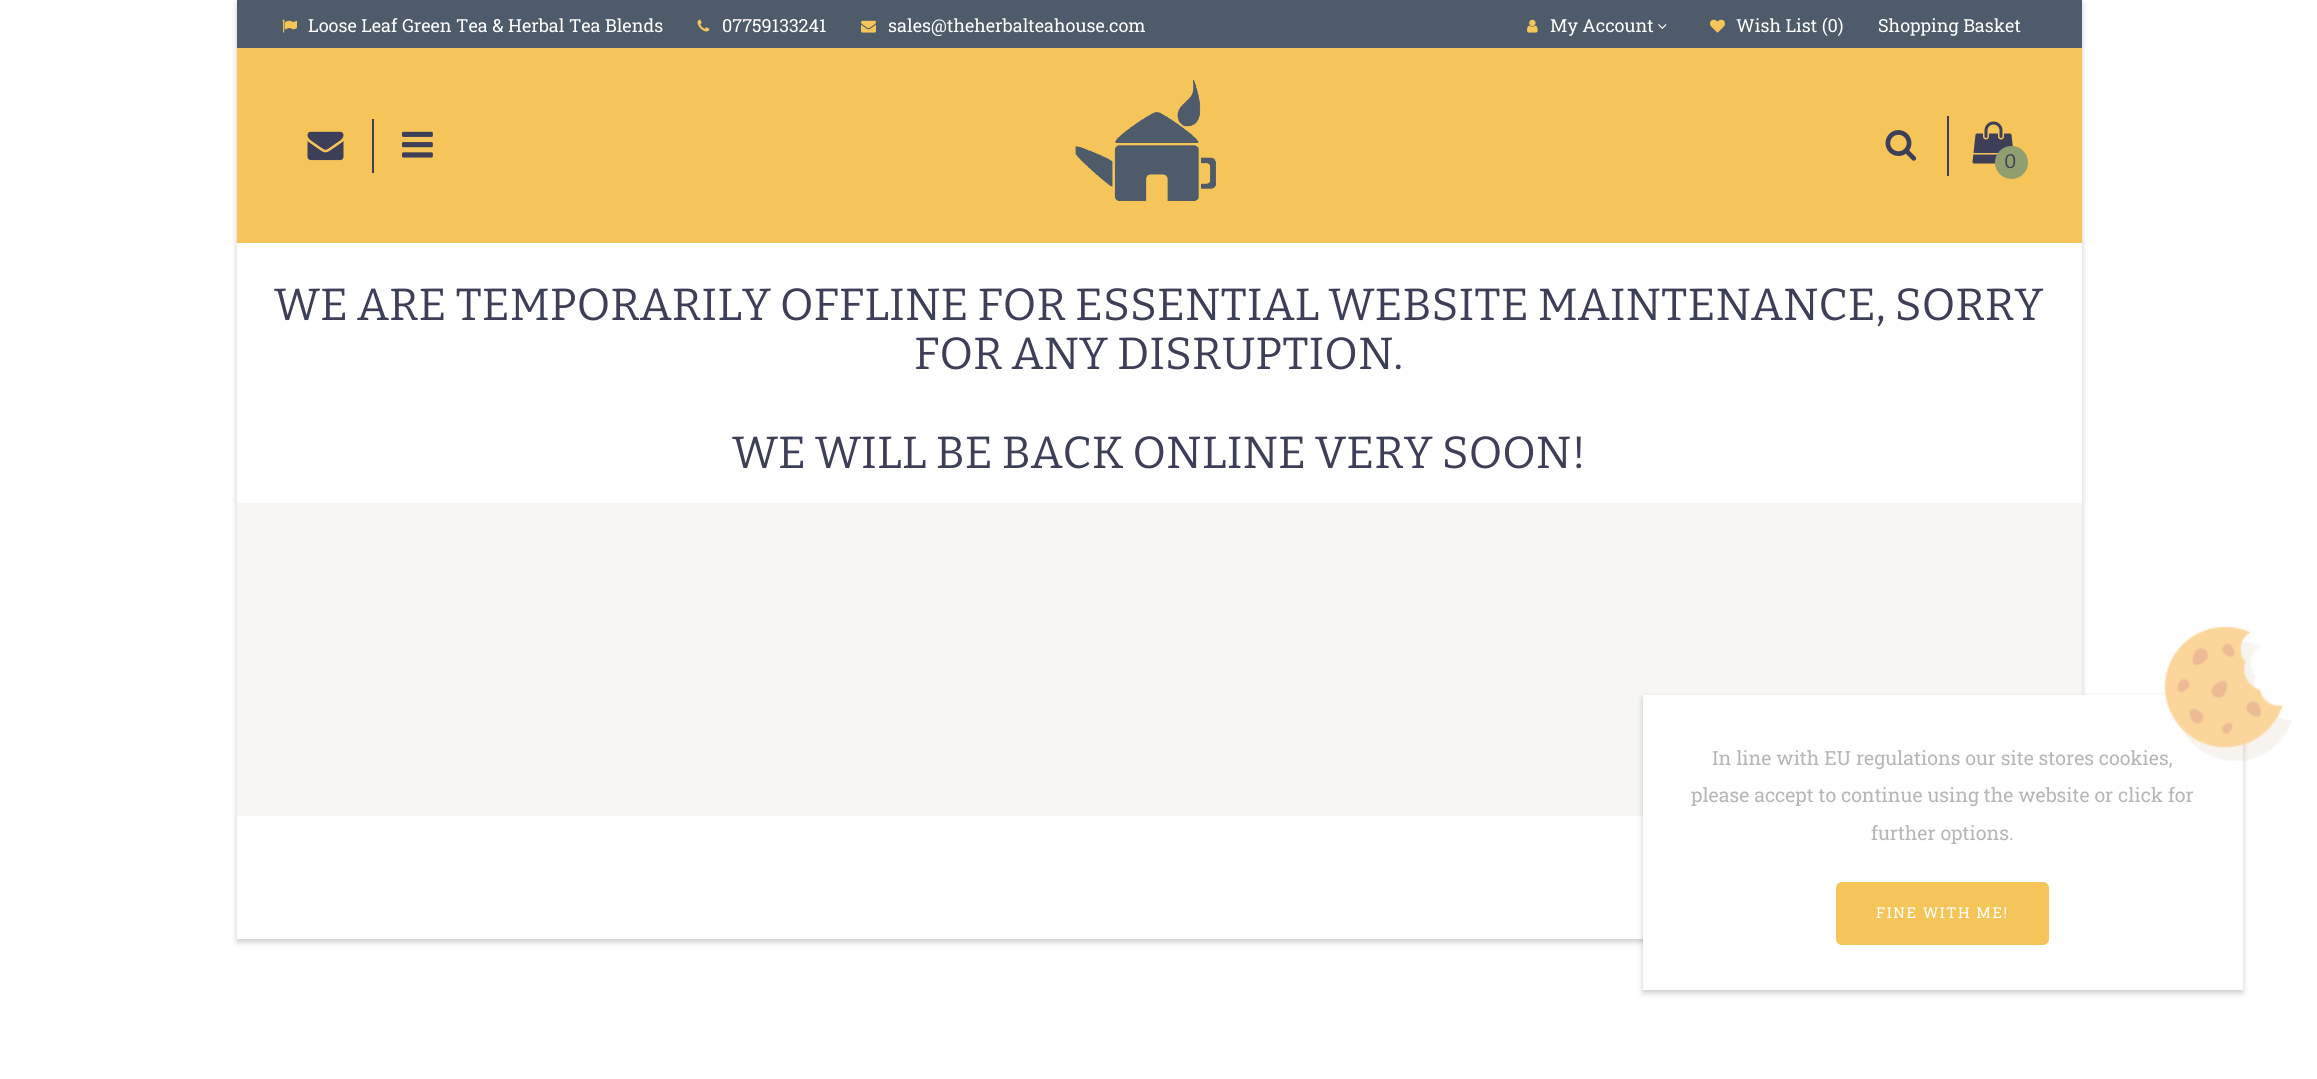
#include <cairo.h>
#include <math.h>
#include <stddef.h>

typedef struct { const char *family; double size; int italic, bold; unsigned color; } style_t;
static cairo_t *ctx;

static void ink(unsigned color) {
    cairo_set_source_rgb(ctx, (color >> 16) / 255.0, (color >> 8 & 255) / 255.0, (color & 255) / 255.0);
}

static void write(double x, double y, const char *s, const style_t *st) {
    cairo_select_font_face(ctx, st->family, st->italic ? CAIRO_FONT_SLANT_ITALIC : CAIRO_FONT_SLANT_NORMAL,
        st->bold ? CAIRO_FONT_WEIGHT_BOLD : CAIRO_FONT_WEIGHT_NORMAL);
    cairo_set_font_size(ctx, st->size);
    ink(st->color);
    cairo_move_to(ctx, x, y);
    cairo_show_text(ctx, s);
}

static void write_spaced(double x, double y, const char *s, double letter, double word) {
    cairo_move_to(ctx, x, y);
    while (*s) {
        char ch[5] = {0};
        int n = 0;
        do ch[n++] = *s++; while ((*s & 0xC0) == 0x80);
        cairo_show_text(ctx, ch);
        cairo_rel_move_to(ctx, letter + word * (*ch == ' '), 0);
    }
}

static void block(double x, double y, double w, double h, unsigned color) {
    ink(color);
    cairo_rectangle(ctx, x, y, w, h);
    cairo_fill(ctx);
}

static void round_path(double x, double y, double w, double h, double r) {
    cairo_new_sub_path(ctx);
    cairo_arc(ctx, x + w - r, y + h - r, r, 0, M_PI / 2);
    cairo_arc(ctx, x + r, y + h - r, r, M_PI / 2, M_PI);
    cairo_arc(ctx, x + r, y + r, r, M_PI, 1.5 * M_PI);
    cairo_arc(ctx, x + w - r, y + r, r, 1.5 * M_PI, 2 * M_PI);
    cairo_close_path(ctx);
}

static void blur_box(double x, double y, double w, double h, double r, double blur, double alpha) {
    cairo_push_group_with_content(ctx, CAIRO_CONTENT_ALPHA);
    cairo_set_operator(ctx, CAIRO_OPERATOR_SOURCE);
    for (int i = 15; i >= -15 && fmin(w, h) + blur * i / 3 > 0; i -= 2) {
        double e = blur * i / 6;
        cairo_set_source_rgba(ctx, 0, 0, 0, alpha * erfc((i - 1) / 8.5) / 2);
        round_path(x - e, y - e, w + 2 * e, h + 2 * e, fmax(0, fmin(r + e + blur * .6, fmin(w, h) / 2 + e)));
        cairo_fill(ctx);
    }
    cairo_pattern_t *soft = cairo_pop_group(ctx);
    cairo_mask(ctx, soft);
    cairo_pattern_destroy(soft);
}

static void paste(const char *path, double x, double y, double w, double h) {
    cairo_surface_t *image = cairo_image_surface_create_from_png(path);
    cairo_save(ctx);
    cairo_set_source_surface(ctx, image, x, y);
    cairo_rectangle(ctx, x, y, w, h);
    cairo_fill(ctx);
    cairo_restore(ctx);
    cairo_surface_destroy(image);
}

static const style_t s1 = {"Roboto Slab", 18, 0, 0, 0xffffff};
static const style_t s2 = {"Bitter", 19.5, 0, 0, 0x3d3e57};
static const style_t s3 = {"Bitter", 45, 0, 0, 0x3d3e57};
static const style_t s4 = {"Roboto Slab", 19.5, 0, 0, 0xb6b6b6};

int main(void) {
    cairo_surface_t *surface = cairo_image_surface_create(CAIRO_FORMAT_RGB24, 2317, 1079);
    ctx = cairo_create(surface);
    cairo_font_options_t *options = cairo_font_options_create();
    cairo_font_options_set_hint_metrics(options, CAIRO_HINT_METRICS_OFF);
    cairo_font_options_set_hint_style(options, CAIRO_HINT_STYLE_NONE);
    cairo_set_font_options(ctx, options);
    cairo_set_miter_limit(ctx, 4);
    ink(0xffffff);
    cairo_paint(ctx);
    cairo_save(ctx);
    cairo_set_fill_rule(ctx, CAIRO_FILL_RULE_EVEN_ODD);
    cairo_new_path(ctx);
    cairo_move_to(ctx, 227, 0);
    cairo_line_to(ctx, 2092, 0);
    cairo_line_to(ctx, 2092, 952);
    cairo_line_to(ctx, 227, 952);
    cairo_close_path(ctx);
    cairo_move_to(ctx, 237, 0);
    cairo_line_to(ctx, 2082, 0);
    cairo_line_to(ctx, 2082, 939);
    cairo_line_to(ctx, 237, 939);
    cairo_close_path(ctx);
    cairo_clip(ctx);
    ink(0x000000);
    blur_box(237, 3, 1845, 939, 0, 3, 0.2);
    cairo_restore(ctx);
    block(237, 48, 1845, 195, 0xf5c559);
    block(237, 0, 1845, 48, 0x4d5b6a);
    paste("pic1.png", 282, 19, 15, 14);
    write(308, 32, "Loose Leaf Green Tea & Herbal Tea Blends", &s1);
    paste("pic2.png", 697, 19, 13, 13);
    write(722, 32, "07759133241", &s1);
    paste("pic3.png", 861, 20, 15, 13);
    write(888, 32, "sales@theherbalteahouse.com", &s1);
    paste("pic4.png", 1527, 19, 11, 14);
    write(1550, 32, "My Account", &s1);
    paste("pic5.png", 1658, 24, 9, 5);
    paste("pic6.png", 1710, 19, 15, 14);
    write(1736, 32, "Wish List (0)", &s1);
    write(1878, 32, "Shopping Basket", &s1);
    paste("pic7.png", 307, 131, 37, 30);
    block(372, 119, 2, 54, 0x3d3e57);
    paste("pic8.png", 402, 131, 31, 27);
    paste("pic9.png", 1075, 79, 141, 122);
    paste("pic10.png", 1885, 130, 32, 31);
    block(1947, 116, 2, 60, 0x3d3e57);
    paste("pic11.png", 1972, 121, 41, 43);
    ink(0x919f70);
    cairo_arc(ctx, 2011.5, 162.5, 16.5, 0, 2 * M_PI);
    cairo_fill(ctx);
    write(2004, 168, "0", &s2);
    write(274, 320, "WE ARE TEMPORARILY OFFLINE FOR ESSENTIAL WEBSITE MAINTENANCE, SORRY", &s3);
    write(914, 369, "FOR ANY DISRUPTION.", &s3);
    write(732, 468, "WE WILL BE BACK ONLINE VERY SOON!", &s3);
    block(237, 503, 1845, 313, 0xf7f6f2);
    ink(0x000000);
    blur_box(1643, 698, 600, 295, 0, 3, 0.2);
    block(1643, 695, 600, 295, 0xffffff);
    write(1712, 765, "In line with EU regulations our site stores cookies,", &s4);
    paste("pic12.png", 2164, 626, 128, 135);
    write(1691, 802, "please accept to continue using the website or click for", &s4);
    write(1871, 840, "further options.", &s4);
    ink(0xf5c559);
    round_path(1837.5, 883.5, 210, 60, 4.5);
    cairo_fill_preserve(ctx);
    cairo_set_line_width(ctx, 3);
    cairo_stroke(ctx);
    cairo_set_font_size(ctx, 15);
    ink(0xffffff);
    write_spaced(1876, 918, "FINE WITH ME!", 1.5, 0);
    cairo_surface_write_to_png(surface, "screenshot.png");
    cairo_font_options_destroy(options);
    cairo_destroy(ctx);
    cairo_surface_destroy(surface);
    return 0;
}
